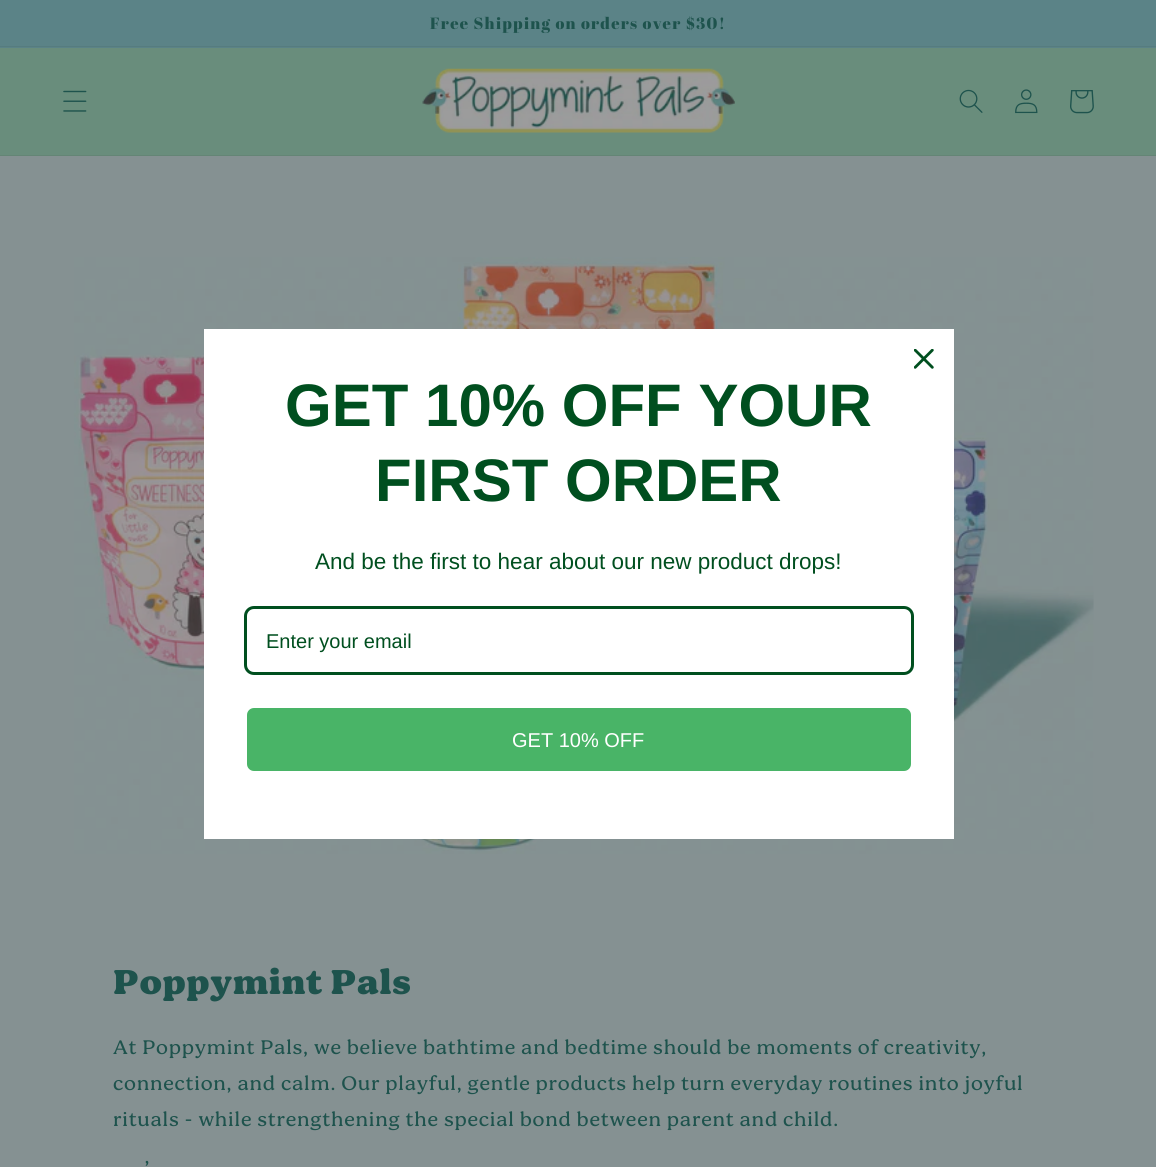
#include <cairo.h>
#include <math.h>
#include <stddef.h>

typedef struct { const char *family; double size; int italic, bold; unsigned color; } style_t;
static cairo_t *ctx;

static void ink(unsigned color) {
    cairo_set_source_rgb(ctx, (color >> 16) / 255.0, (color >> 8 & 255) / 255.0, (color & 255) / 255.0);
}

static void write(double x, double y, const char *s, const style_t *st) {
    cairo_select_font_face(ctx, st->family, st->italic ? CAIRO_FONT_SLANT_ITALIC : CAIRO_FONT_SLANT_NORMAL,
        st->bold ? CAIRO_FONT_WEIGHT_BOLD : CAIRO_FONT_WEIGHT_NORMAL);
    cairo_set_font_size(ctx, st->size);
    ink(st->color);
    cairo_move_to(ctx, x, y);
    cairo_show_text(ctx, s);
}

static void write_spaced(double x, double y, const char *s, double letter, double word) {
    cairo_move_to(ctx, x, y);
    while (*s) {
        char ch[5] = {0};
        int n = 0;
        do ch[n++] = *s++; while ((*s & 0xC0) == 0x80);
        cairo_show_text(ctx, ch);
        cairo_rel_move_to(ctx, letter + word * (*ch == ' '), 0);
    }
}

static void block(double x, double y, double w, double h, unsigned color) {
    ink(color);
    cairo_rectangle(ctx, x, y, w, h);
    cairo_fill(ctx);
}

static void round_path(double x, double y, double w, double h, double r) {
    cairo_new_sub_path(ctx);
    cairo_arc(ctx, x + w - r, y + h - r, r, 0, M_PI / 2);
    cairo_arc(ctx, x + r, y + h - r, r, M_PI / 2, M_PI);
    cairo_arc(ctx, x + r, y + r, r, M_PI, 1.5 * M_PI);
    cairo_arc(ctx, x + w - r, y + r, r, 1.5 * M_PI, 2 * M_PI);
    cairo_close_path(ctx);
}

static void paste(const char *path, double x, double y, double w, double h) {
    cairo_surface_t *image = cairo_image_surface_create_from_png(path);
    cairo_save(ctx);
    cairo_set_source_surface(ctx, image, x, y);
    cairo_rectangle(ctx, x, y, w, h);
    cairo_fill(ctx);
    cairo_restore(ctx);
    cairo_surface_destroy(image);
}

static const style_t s1 = {"Liberation Sans", 60, 0, 1, 0x004f1f};
static const style_t s2 = {"Liberation Sans", 22.5, 0, 0, 0x004f1f};
static const style_t s3 = {"Liberation Sans", 20, 0, 0, 0x004f1f};
static const style_t s4 = {"Liberation Sans", 20, 0, 0, 0xffffff};

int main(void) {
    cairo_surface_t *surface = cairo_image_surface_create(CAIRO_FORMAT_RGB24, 1156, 1167);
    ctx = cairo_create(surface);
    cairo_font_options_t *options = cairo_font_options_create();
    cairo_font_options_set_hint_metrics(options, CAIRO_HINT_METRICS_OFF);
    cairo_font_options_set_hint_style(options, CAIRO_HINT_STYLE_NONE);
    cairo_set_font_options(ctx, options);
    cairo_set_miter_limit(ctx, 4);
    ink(0x859192);
    cairo_paint(ctx);
    block(0, 0, 1156, 48, 0x5b8387);
    block(0, 46, 1156, 1, 0x567c7f);
    cairo_select_font_face(ctx, "Abril Fatface", CAIRO_FONT_SLANT_NORMAL, CAIRO_FONT_WEIGHT_NORMAL);
    cairo_set_font_size(ctx, 16.25);
    ink(0x1e534d);
    write_spaced(430, 29, "Free Shipping on orders over $30!", 1.25, 0);
    block(0, 48, 1156, 107, 0x698d7c);
    block(0, 155, 1156, 1, 0x648575);
    paste("pic1.png", 63, 90, 24, 22);
    paste("pic2.png", 422, 68, 313, 65);
    paste("pic3.png", 959, 89, 24, 24);
    paste("pic4.png", 1015, 89, 23, 25);
    paste("pic5.png", 1070, 90, 24, 24);
    paste("pic7.png", 74, 257, 1020, 597);
    block(204, 329, 750, 510, 0xffffff);
    paste("pic6.png", 914, 349, 20, 20);
    write(285, 426, "GET 10% OFF YOUR", &s1);
    write(375, 501, "FIRST ORDER", &s1);
    write(315, 569, "And be the first to hear about our new product drops!", &s2);
    round_path(245.5, 607.5, 667, 66, 8.5);
    cairo_set_line_width(ctx, 3);
    cairo_stroke(ctx);
    write(266, 648, "Enter your email", &s3);
    ink(0x49b467);
    round_path(245.5, 706.5, 667, 66, 8.5);
    cairo_fill_preserve(ctx);
    ink(0xffffff);
    cairo_stroke(ctx);
    write(512, 747, "GET 10% OFF", &s4);
    cairo_select_font_face(ctx, "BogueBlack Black", CAIRO_FONT_SLANT_NORMAL, CAIRO_FONT_WEIGHT_NORMAL);
    cairo_set_font_size(ctx, 35);
    ink(0x1e534d);
    write_spaced(113, 994, "Poppymint Pals", 0.75, 0);
    cairo_select_font_face(ctx, "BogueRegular", CAIRO_FONT_SLANT_NORMAL, CAIRO_FONT_WEIGHT_NORMAL);
    cairo_set_font_size(ctx, 20);
    write_spaced(113, 1054, "At Poppymint Pals, we believe bathtime and bedtime should be moments of creativity,", 0.75, 0);
    write_spaced(113, 1090, "connection, and calm. Our playful, gentle products help turn everyday routines into joyful", 0.75, 0);
    write_spaced(113, 1126, "rituals - while strengthening the special bond between parent and child.", 0.75, 0);
    write_spaced(145, 1175, "’", 0.75, 0);
    cairo_surface_write_to_png(surface, "screenshot.png");
    cairo_font_options_destroy(options);
    cairo_destroy(ctx);
    cairo_surface_destroy(surface);
    return 0;
}
